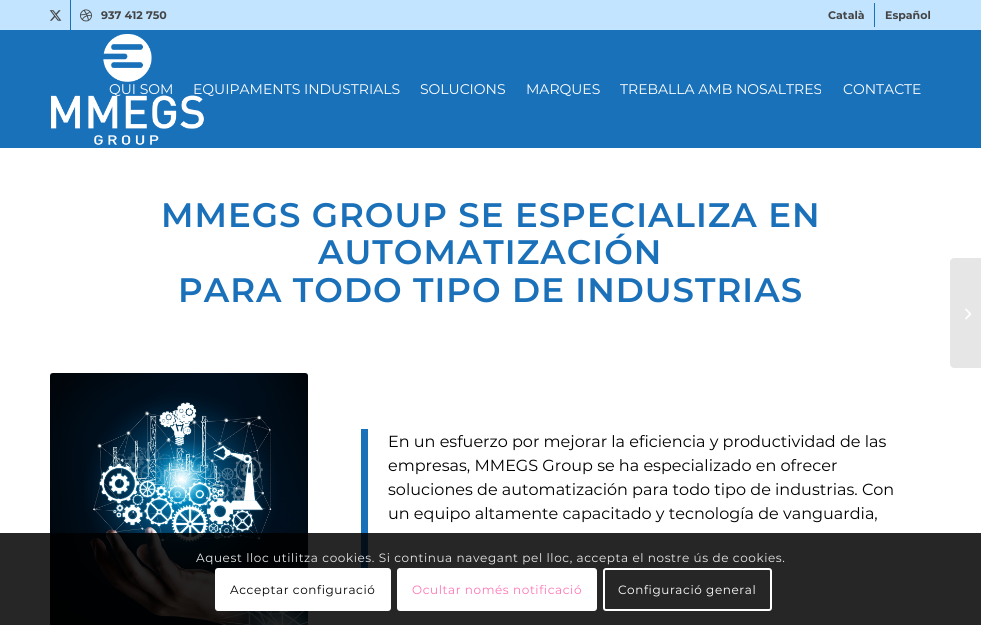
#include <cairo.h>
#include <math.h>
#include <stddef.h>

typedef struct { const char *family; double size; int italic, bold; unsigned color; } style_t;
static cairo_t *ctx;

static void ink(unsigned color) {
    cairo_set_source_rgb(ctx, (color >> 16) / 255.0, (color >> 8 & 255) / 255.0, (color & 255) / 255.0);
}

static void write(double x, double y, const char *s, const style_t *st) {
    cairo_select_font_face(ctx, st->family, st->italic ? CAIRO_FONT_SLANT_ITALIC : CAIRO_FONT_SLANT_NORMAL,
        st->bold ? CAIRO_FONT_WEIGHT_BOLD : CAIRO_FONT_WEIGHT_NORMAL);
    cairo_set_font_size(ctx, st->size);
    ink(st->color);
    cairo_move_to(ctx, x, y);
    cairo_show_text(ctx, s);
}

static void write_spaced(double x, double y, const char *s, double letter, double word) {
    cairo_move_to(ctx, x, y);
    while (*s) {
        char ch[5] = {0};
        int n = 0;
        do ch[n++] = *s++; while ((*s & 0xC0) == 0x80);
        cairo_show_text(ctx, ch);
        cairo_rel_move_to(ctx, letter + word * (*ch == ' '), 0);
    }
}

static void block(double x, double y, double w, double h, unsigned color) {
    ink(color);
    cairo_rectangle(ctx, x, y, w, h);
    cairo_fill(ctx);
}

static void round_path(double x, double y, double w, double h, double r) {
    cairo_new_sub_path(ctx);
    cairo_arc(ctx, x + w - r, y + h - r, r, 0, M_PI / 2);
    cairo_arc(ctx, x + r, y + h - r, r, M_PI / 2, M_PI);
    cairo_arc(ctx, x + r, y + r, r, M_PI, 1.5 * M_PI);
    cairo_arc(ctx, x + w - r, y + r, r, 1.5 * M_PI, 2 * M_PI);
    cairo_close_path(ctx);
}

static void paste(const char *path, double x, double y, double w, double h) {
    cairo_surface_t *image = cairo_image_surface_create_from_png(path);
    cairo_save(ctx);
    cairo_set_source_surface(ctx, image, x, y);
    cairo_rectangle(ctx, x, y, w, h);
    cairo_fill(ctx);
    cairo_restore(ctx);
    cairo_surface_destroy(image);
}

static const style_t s1 = {"Montserrat", 11, 0, 1, 0x444444};
static const style_t s2 = {"Montserrat Thin", 14, 0, 0, 0xffffff};
static const style_t s3 = {"Montserrat Thin", 16.05, 0, 0, 0x000000};

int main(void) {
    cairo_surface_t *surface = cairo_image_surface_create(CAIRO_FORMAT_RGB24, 981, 625);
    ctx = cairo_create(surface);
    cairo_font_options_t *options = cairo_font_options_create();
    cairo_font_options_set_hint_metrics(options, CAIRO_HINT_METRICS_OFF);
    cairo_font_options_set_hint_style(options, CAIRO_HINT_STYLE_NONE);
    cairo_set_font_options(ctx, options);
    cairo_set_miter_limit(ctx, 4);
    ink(0xffffff);
    cairo_paint(ctx);
    block(0, 0, 981, 30, 0xc2e4ff);
    block(70, 0, 1, 30, 0x1971ba);
    paste("pic1.png", 49, 10, 13, 11);
    paste("pic2.png", 80, 9, 12, 13);
    write(101, 19, "937 412 750", &s1);
    block(874, 3, 1, 24, 0x1971ba);
    write(828, 19, "Català", &s1);
    write(885, 19, "Español", &s1);
    block(0, 30, 981, 118, 0x1971ba);
    paste("pic3.png", 51, 34, 153, 111);
    write(109, 94, "QUI SOM", &s2);
    write(193, 94, "EQUIPAMENTS INDUSTRIALS", &s2);
    write(420, 94, "SOLUCIONS", &s2);
    write(526, 94, "MARQUES", &s2);
    write(620, 94, "TREBALLA AMB NOSALTRES", &s2);
    write(843, 94, "CONTACTE", &s2);
    cairo_select_font_face(ctx, "Montserrat SemiBold", CAIRO_FONT_SLANT_NORMAL, CAIRO_FONT_WEIGHT_NORMAL);
    cairo_set_font_size(ctx, 34);
    ink(0x1a71b9);
    write_spaced(161, 227, "MMEGS GROUP SE ESPECIALIZA EN", 1, 0);
    write_spaced(318, 264, "AUTOMATIZACIÓN", 1, 0);
    write_spaced(178, 302, "PARA TODO TIPO DE INDUSTRIAS", 1, 0);
    paste("pic4.png", 50, 373, 258, 252);
    block(361, 429, 7, 144, 0x1971ba);
    write(388, 447, "En un esfuerzo por mejorar la eficiencia y productividad de las", &s3);
    write(388, 471, "empresas, MMEGS Group se ha especializado en ofrecer", &s3);
    write(388, 495, "soluciones de automatización para todo tipo de industrias. Con", &s3);
    write(388, 519, "un equipo altamente capacitado y tecnología de vanguardia,", &s3);
    ink(0xe6e6e6);
    cairo_new_path(ctx);
    cairo_move_to(ctx, 954, 258);
    cairo_line_to(ctx, 981, 258);
    cairo_line_to(ctx, 981, 368);
    cairo_line_to(ctx, 954, 368);
    cairo_curve_to(ctx, 952, 368, 950, 366, 950, 364);
    cairo_line_to(ctx, 950, 262);
    cairo_curve_to(ctx, 950, 260, 952, 258, 954, 258);
    cairo_close_path(ctx);
    cairo_fill(ctx);
    paste("pic5.png", 965, 308, 6, 12);
    cairo_set_source_rgba(ctx, 0, 0, 0, 0.85);
    cairo_rectangle(ctx, 0, 533, 981, 92);
    cairo_fill(ctx);
    cairo_set_font_size(ctx, 12);
    ink(0xe8e8e8);
    write_spaced(196, 562, "Aquest lloc utilitza cookies. Si continua navegant pel lloc, accepta el nostre ús de cookies.", 0.6, 0);
    ink(0xffffff);
    round_path(215, 568, 176, 43, 3);
    cairo_fill(ctx);
    ink(0x000000);
    write_spaced(230, 594, "Acceptar configuració", 0.6, 0);
    ink(0xffffff);
    round_path(398, 569, 198, 41, 2);
    cairo_fill_preserve(ctx);
    cairo_stroke(ctx);
    ink(0xff75b5);
    write_spaced(412, 594, "Ocultar només notificació", 0.6, 0);
    round_path(604, 569, 167, 41, 2);
    ink(0xffffff);
    cairo_stroke(ctx);
    write_spaced(618, 594, "Configuració general", 0.6, 0);
    cairo_surface_write_to_png(surface, "screenshot.png");
    cairo_font_options_destroy(options);
    cairo_destroy(ctx);
    cairo_surface_destroy(surface);
    return 0;
}
